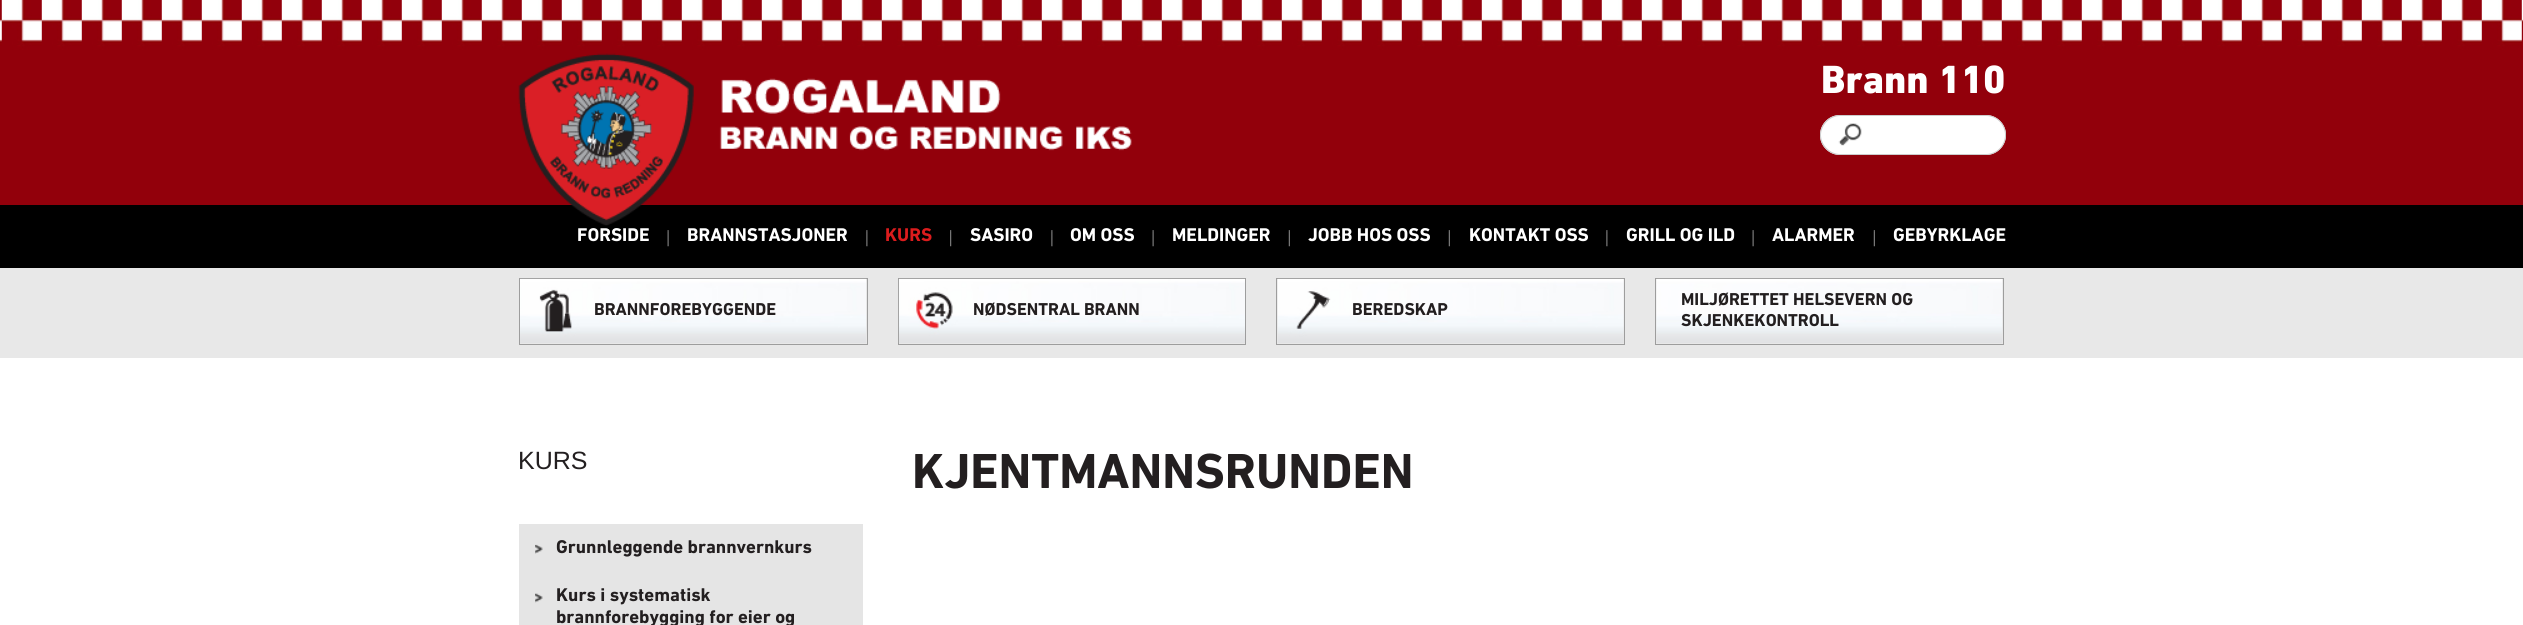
#include <cairo.h>
#include <math.h>
#include <stddef.h>

typedef struct { const char *family; double size; int italic, bold; unsigned color; } style_t;
static cairo_t *ctx;

static void ink(unsigned color) {
    cairo_set_source_rgb(ctx, (color >> 16) / 255.0, (color >> 8 & 255) / 255.0, (color & 255) / 255.0);
}

static void write(double x, double y, const char *s, const style_t *st) {
    cairo_select_font_face(ctx, st->family, st->italic ? CAIRO_FONT_SLANT_ITALIC : CAIRO_FONT_SLANT_NORMAL,
        st->bold ? CAIRO_FONT_WEIGHT_BOLD : CAIRO_FONT_WEIGHT_NORMAL);
    cairo_set_font_size(ctx, st->size);
    ink(st->color);
    cairo_move_to(ctx, x, y);
    cairo_show_text(ctx, s);
}

static void block(double x, double y, double w, double h, unsigned color) {
    ink(color);
    cairo_rectangle(ctx, x, y, w, h);
    cairo_fill(ctx);
}

static void paste(const char *path, double x, double y, double w, double h) {
    cairo_surface_t *image = cairo_image_surface_create_from_png(path);
    cairo_save(ctx);
    cairo_set_source_surface(ctx, image, x, y);
    cairo_rectangle(ctx, x, y, w, h);
    cairo_fill(ctx);
    cairo_restore(ctx);
    cairo_surface_destroy(image);
}

static const style_t s1 = {"DIN Next Black", 40, 0, 0, 0xffffff};
static const style_t s2 = {"DIN Next", 18.75, 0, 1, 0xffffff};
static const style_t s3 = {"DIN Next", 18.75, 0, 1, 0xdc1c1d};
static const style_t s4 = {"DIN Next", 17.5, 0, 1, 0x231f20};
static const style_t s5 = {"Liberation Sans", 25, 0, 0, 0x231f20};
static const style_t s6 = {"DIN Next", 18.75, 0, 1, 0x231f20};
static const style_t s7 = {"DIN Next", 50, 0, 1, 0x231f20};

int main(void) {
    cairo_surface_t *surface = cairo_image_surface_create(CAIRO_FORMAT_RGB24, 2523, 625);
    ctx = cairo_create(surface);
    cairo_font_options_t *options = cairo_font_options_create();
    cairo_font_options_set_hint_metrics(options, CAIRO_HINT_METRICS_OFF);
    cairo_font_options_set_hint_style(options, CAIRO_HINT_STYLE_NONE);
    cairo_set_font_options(ctx, options);
    cairo_set_miter_limit(ctx, 4);
    ink(0xffffff);
    cairo_paint(ctx);
    paste("pic1.png", 0, 0, 2523, 205);
    block(0, 205, 2523, 63, 0x000000);
    paste("pic2.png", 518, 53, 614, 173);
    write(1821, 93, "Brann 110", &s1);
    cairo_new_path(ctx);
    cairo_move_to(ctx, 1840, 115);
    cairo_line_to(ctx, 1874, 115);
    cairo_line_to(ctx, 1874, 155);
    cairo_line_to(ctx, 1840, 155);
    cairo_curve_to(ctx, 1829, 155, 1820, 146, 1820, 135);
    cairo_curve_to(ctx, 1820, 124, 1829, 115, 1840, 115);
    cairo_close_path(ctx);
    cairo_fill(ctx);
    paste("pic3.png", 1838, 123, 24, 23);
    ink(0xcccccc);
    cairo_set_fill_rule(ctx, CAIRO_FILL_RULE_EVEN_ODD);
    cairo_new_path(ctx);
    cairo_move_to(ctx, 1840, 115);
    cairo_line_to(ctx, 1874, 115);
    cairo_line_to(ctx, 1874, 155);
    cairo_line_to(ctx, 1840, 155);
    cairo_curve_to(ctx, 1829, 155, 1820, 146, 1820, 135);
    cairo_curve_to(ctx, 1820, 124, 1829, 115, 1840, 115);
    cairo_close_path(ctx);
    cairo_move_to(ctx, 1840, 116);
    cairo_line_to(ctx, 1874, 116);
    cairo_line_to(ctx, 1874, 154);
    cairo_line_to(ctx, 1840, 154);
    cairo_curve_to(ctx, 1830, 154, 1821, 145, 1821, 135);
    cairo_curve_to(ctx, 1821, 125, 1830, 116, 1840, 116);
    cairo_close_path(ctx);
    cairo_fill(ctx);
    ink(0xffffff);
    cairo_new_path(ctx);
    cairo_move_to(ctx, 1874, 115);
    cairo_line_to(ctx, 1986, 115);
    cairo_curve_to(ctx, 1997, 115, 2006, 124, 2006, 135);
    cairo_curve_to(ctx, 2006, 146, 1997, 155, 1986, 155);
    cairo_line_to(ctx, 1874, 155);
    cairo_close_path(ctx);
    cairo_fill(ctx);
    ink(0xcccccc);
    cairo_new_path(ctx);
    cairo_move_to(ctx, 1874, 115);
    cairo_line_to(ctx, 1986, 115);
    cairo_curve_to(ctx, 1997, 115, 2006, 124, 2006, 135);
    cairo_curve_to(ctx, 2006, 146, 1997, 155, 1986, 155);
    cairo_line_to(ctx, 1874, 155);
    cairo_close_path(ctx);
    cairo_move_to(ctx, 1874, 116);
    cairo_line_to(ctx, 1986, 116);
    cairo_curve_to(ctx, 1997, 116, 2005, 125, 2005, 135);
    cairo_curve_to(ctx, 2005, 145, 1997, 154, 1986, 154);
    cairo_line_to(ctx, 1874, 154);
    cairo_close_path(ctx);
    cairo_fill(ctx);
    write(577, 241, "FORSIDE", &s2);
    paste("pic4.png", 667, 230, 2, 17);
    write(687, 241, "BRANNSTASJONER", &s2);
    paste("pic5.png", 866, 230, 2, 17);
    write(885, 241, "KURS", &s3);
    paste("pic6.png", 950, 230, 2, 17);
    write(970, 241, "SASIRO", &s2);
    paste("pic5.png", 1051, 230, 2, 17);
    write(1070, 241, "OM OSS", &s2);
    paste("pic4.png", 1152, 230, 2, 17);
    write(1172, 241, "MELDINGER", &s2);
    paste("pic7.png", 1288, 230, 2, 17);
    write(1308, 241, "JOBB HOS OSS", &s2);
    paste("pic7.png", 1448, 230, 2, 17);
    write(1469, 241, "KONTAKT OSS", &s2);
    paste("pic5.png", 1606, 230, 2, 17);
    write(1626, 241, "GRILL OG ILD", &s2);
    paste("pic4.png", 1752, 230, 2, 17);
    write(1772, 241, "ALARMER", &s2);
    paste("pic7.png", 1873, 230, 2, 17);
    write(1893, 241, "GEBYRKLAGE", &s2);
    block(0, 268, 2523, 90, 0xe8e8e8);
    cairo_rectangle(ctx, 519.5, 278.5, 348, 66);
    ink(0x9d9d9d);
    cairo_set_line_width(ctx, 1);
    cairo_stroke(ctx);
    paste("pic8.png", 520, 278, 346, 65);
    write(594, 315, "BRANNFOREBYGGENDE", &s4);
    cairo_rectangle(ctx, 898.5, 278.5, 347, 66);
    ink(0x9d9d9d);
    cairo_stroke(ctx);
    paste("pic9.png", 898, 278, 347, 65);
    write(973, 315, "NØDSENTRAL BRANN", &s4);
    cairo_rectangle(ctx, 1276.5, 278.5, 348, 66);
    ink(0x9d9d9d);
    cairo_stroke(ctx);
    paste("pic10.png", 1277, 278, 347, 65);
    write(1352, 315, "BEREDSKAP", &s4);
    cairo_rectangle(ctx, 1655.5, 278.5, 348, 66);
    ink(0x9d9d9d);
    cairo_stroke(ctx);
    paste("pic11.png", 1656, 278, 347, 65);
    write(1681, 305, "MILJØRETTET HELSEVERN OG", &s4);
    write(1681, 326, "SKJENKEKONTROLL", &s4);
    write(518, 469, "KURS", &s5);
    block(519, 524, 344, 101, 0xe5e5e5);
    paste("pic12.png", 535, 544, 8, 10);
    write(556, 553, "Grunnleggende brannvernkurs", &s6);
    paste("pic13.png", 535, 593, 8, 10);
    write(556, 601, "Kurs i systematisk", &s6);
    write(556, 623, "brannforebygging for eier og", &s6);
    write(912, 488, "KJENTMANNSRUNDEN", &s7);
    cairo_surface_write_to_png(surface, "screenshot.png");
    cairo_font_options_destroy(options);
    cairo_destroy(ctx);
    cairo_surface_destroy(surface);
    return 0;
}
